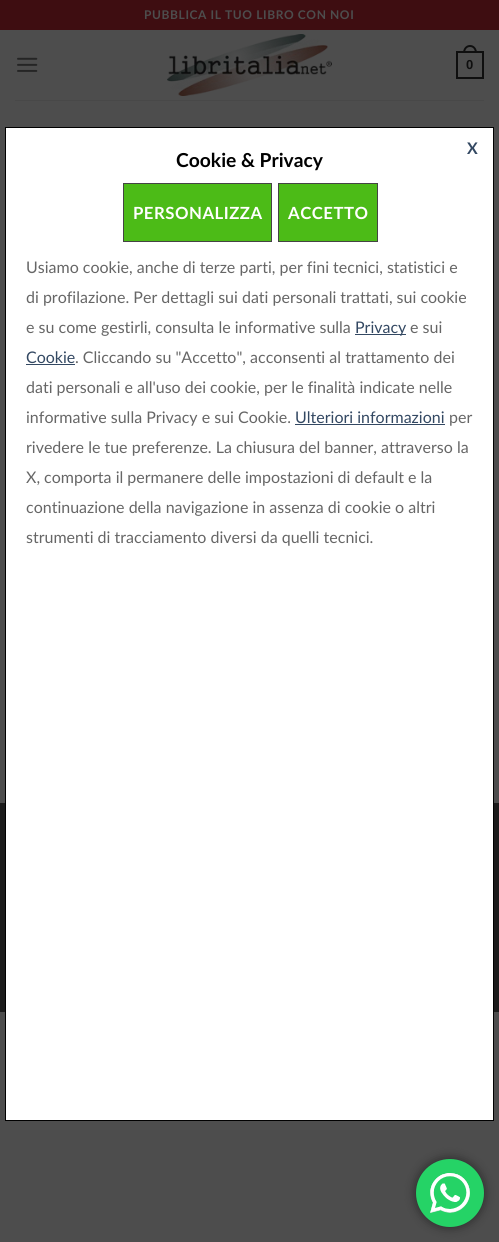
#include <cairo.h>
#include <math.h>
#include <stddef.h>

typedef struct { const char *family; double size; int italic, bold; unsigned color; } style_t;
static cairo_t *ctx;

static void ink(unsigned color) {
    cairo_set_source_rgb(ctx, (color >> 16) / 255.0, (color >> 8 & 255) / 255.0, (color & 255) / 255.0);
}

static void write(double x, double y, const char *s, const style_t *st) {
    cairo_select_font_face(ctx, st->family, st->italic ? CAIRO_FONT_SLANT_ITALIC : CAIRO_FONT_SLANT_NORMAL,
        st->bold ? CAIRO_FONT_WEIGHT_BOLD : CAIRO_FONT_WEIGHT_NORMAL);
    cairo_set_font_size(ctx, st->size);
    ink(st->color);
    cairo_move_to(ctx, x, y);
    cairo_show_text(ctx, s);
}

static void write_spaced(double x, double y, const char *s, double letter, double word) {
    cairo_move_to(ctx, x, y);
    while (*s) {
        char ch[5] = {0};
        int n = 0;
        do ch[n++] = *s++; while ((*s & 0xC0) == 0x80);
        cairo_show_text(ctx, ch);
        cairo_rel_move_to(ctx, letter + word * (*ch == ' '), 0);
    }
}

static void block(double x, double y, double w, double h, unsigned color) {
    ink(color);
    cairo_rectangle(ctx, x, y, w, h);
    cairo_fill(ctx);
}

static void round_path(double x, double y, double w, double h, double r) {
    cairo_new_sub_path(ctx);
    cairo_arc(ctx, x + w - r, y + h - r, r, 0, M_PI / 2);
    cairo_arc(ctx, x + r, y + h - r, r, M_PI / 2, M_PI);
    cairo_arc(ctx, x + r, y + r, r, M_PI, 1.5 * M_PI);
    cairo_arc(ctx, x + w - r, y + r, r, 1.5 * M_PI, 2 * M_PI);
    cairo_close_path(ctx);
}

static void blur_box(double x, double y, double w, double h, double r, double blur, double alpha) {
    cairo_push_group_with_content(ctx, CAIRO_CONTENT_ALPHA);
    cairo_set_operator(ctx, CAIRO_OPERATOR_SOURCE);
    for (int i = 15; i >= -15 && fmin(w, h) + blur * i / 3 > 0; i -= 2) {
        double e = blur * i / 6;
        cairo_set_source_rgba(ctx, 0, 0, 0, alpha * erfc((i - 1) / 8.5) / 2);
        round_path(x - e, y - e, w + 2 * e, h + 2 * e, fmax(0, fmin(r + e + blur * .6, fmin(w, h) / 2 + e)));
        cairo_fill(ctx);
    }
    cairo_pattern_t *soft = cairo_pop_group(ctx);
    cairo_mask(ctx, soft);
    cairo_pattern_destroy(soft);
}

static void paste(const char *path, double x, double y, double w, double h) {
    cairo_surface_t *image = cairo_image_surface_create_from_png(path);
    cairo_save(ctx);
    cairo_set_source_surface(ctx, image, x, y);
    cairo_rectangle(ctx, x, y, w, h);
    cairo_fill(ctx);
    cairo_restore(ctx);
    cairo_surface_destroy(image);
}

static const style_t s1 = {"Liberation Sans", 13, 0, 1, 0x0f0f0f};
static const style_t s2 = {"Lato", 16, 0, 1, 0x334862};
static const style_t s3 = {"Lato", 19.25, 0, 1, 0x000000};
static const style_t s4 = {"Lato", 16, 0, 0, 0x666666};
static const style_t s5 = {"Lato", 16, 0, 0, 0x334862};

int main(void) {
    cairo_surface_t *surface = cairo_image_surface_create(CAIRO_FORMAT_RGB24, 499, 1242);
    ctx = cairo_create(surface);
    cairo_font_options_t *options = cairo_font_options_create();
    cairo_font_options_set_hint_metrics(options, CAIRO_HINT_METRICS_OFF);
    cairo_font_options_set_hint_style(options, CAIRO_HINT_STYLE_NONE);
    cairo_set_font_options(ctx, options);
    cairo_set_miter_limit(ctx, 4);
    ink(0x4d4d4d);
    cairo_paint(ctx);
    block(0, 0, 499, 30, 0x3e0d11);
    cairo_select_font_face(ctx, "Lato", CAIRO_FONT_SLANT_NORMAL, CAIRO_FONT_WEIGHT_BOLD);
    cairo_set_font_size(ctx, 12);
    ink(0x4d4d4d);
    write_spaced(144, 19, "PUBBLICA IL TUO LIBRO CON NOI", 0.6, 0);
    paste("pic1.png", 17, 57, 21, 15);
    paste("pic2.png", 167, 34, 165, 62);
    cairo_rectangle(ctx, 457, 52, 26, 26);
    ink(0x0f0f0f);
    cairo_stroke(ctx);
    cairo_set_fill_rule(ctx, CAIRO_FILL_RULE_EVEN_ODD);
    cairo_new_path(ctx);
    cairo_move_to(ctx, 470, 45);
    cairo_curve_to(ctx, 474.5, 45, 477, 49, 477, 53);
    cairo_line_to(ctx, 463, 53);
    cairo_curve_to(ctx, 463, 49, 465.5, 45, 470, 45);
    cairo_close_path(ctx);
    cairo_move_to(ctx, 470, 47);
    cairo_curve_to(ctx, 473.5, 47, 475, 50, 475, 53);
    cairo_line_to(ctx, 465, 53);
    cairo_curve_to(ctx, 465, 50, 466.5, 47, 470, 47);
    cairo_close_path(ctx);
    cairo_fill(ctx);
    write(466, 69, "0", &s1);
    block(15, 100, 469, 1, 0x484848);
    block(0, 803, 499, 209, 0x1b1b1b);
    ink(0xffffff);
    cairo_rectangle(ctx, 5.5, 127.5, 488, 993);
    cairo_fill_preserve(ctx);
    ink(0x000000);
    cairo_set_line_width(ctx, 1);
    cairo_stroke(ctx);
    write(467, 154, "X", &s2);
    write(176, 167, "Cookie & Privacy", &s3);
    ink(0x4cbb17);
    cairo_rectangle(ctx, 123.5, 183.5, 148, 58);
    cairo_fill_preserve(ctx);
    ink(0x444444);
    cairo_stroke(ctx);
    cairo_set_font_size(ctx, 16.75);
    ink(0xffffff);
    write_spaced(133, 219, "PERSONALIZZA", 0.5, 0);
    ink(0x4cbb17);
    cairo_rectangle(ctx, 278.5, 183.5, 99, 58);
    cairo_fill_preserve(ctx);
    ink(0x444444);
    cairo_stroke(ctx);
    ink(0xffffff);
    write_spaced(288, 219, "ACCETTO", 0.5, 0);
    write(26, 273, "Usiamo cookie, anche di terze parti, per fini tecnici, statistici e", &s4);
    write(26, 303, "di profilazione. Per dettagli sui dati personali trattati, sui cookie", &s4);
    write(26, 333, "e su come gestirli, consulta le informative sulla", &s4);
    block(355, 334, 51, 1, 0x334862);
    write(355, 333, "Privacy", &s5);
    write(410, 333, "e sui", &s4);
    write(26, 363, "Cookie", &s5);
    block(26, 364, 49, 1, 0x334862);
    write(75, 363, ". Cliccando su \"Accetto\", acconsenti al trattamento dei", &s4);
    write(26, 393, "dati personali e all'uso dei cookie, per le finalità indicate nelle", &s4);
    write(26, 423, "informative sulla Privacy e sui Cookie.", &s4);
    write(295, 423, "Ulteriori informazioni", &s5);
    block(295, 424, 150, 1, 0x334862);
    write(449, 423, "per", &s4);
    write(26, 453, "rivedere le tue preferenze. La chiusura del banner, attraverso la", &s4);
    write(26, 483, "X, comporta il permanere delle impostazioni di default e la", &s4);
    write(26, 513, "continuazione della navigazione in assenza di cookie o altri", &s4);
    write(26, 543, "strumenti di tracciamento diversi da quelli tecnici.", &s4);
    ink(0x000000);
    blur_box(416, 1159, 68, 68, 34, 5.5, 0.5);
    ink(0x25d366);
    cairo_arc(ctx, 450, 1193, 34, 0, 2 * M_PI);
    cairo_fill(ctx);
    paste("pic3.png", 430, 1173, 40, 40);
    cairo_surface_write_to_png(surface, "screenshot.png");
    cairo_font_options_destroy(options);
    cairo_destroy(ctx);
    cairo_surface_destroy(surface);
    return 0;
}
